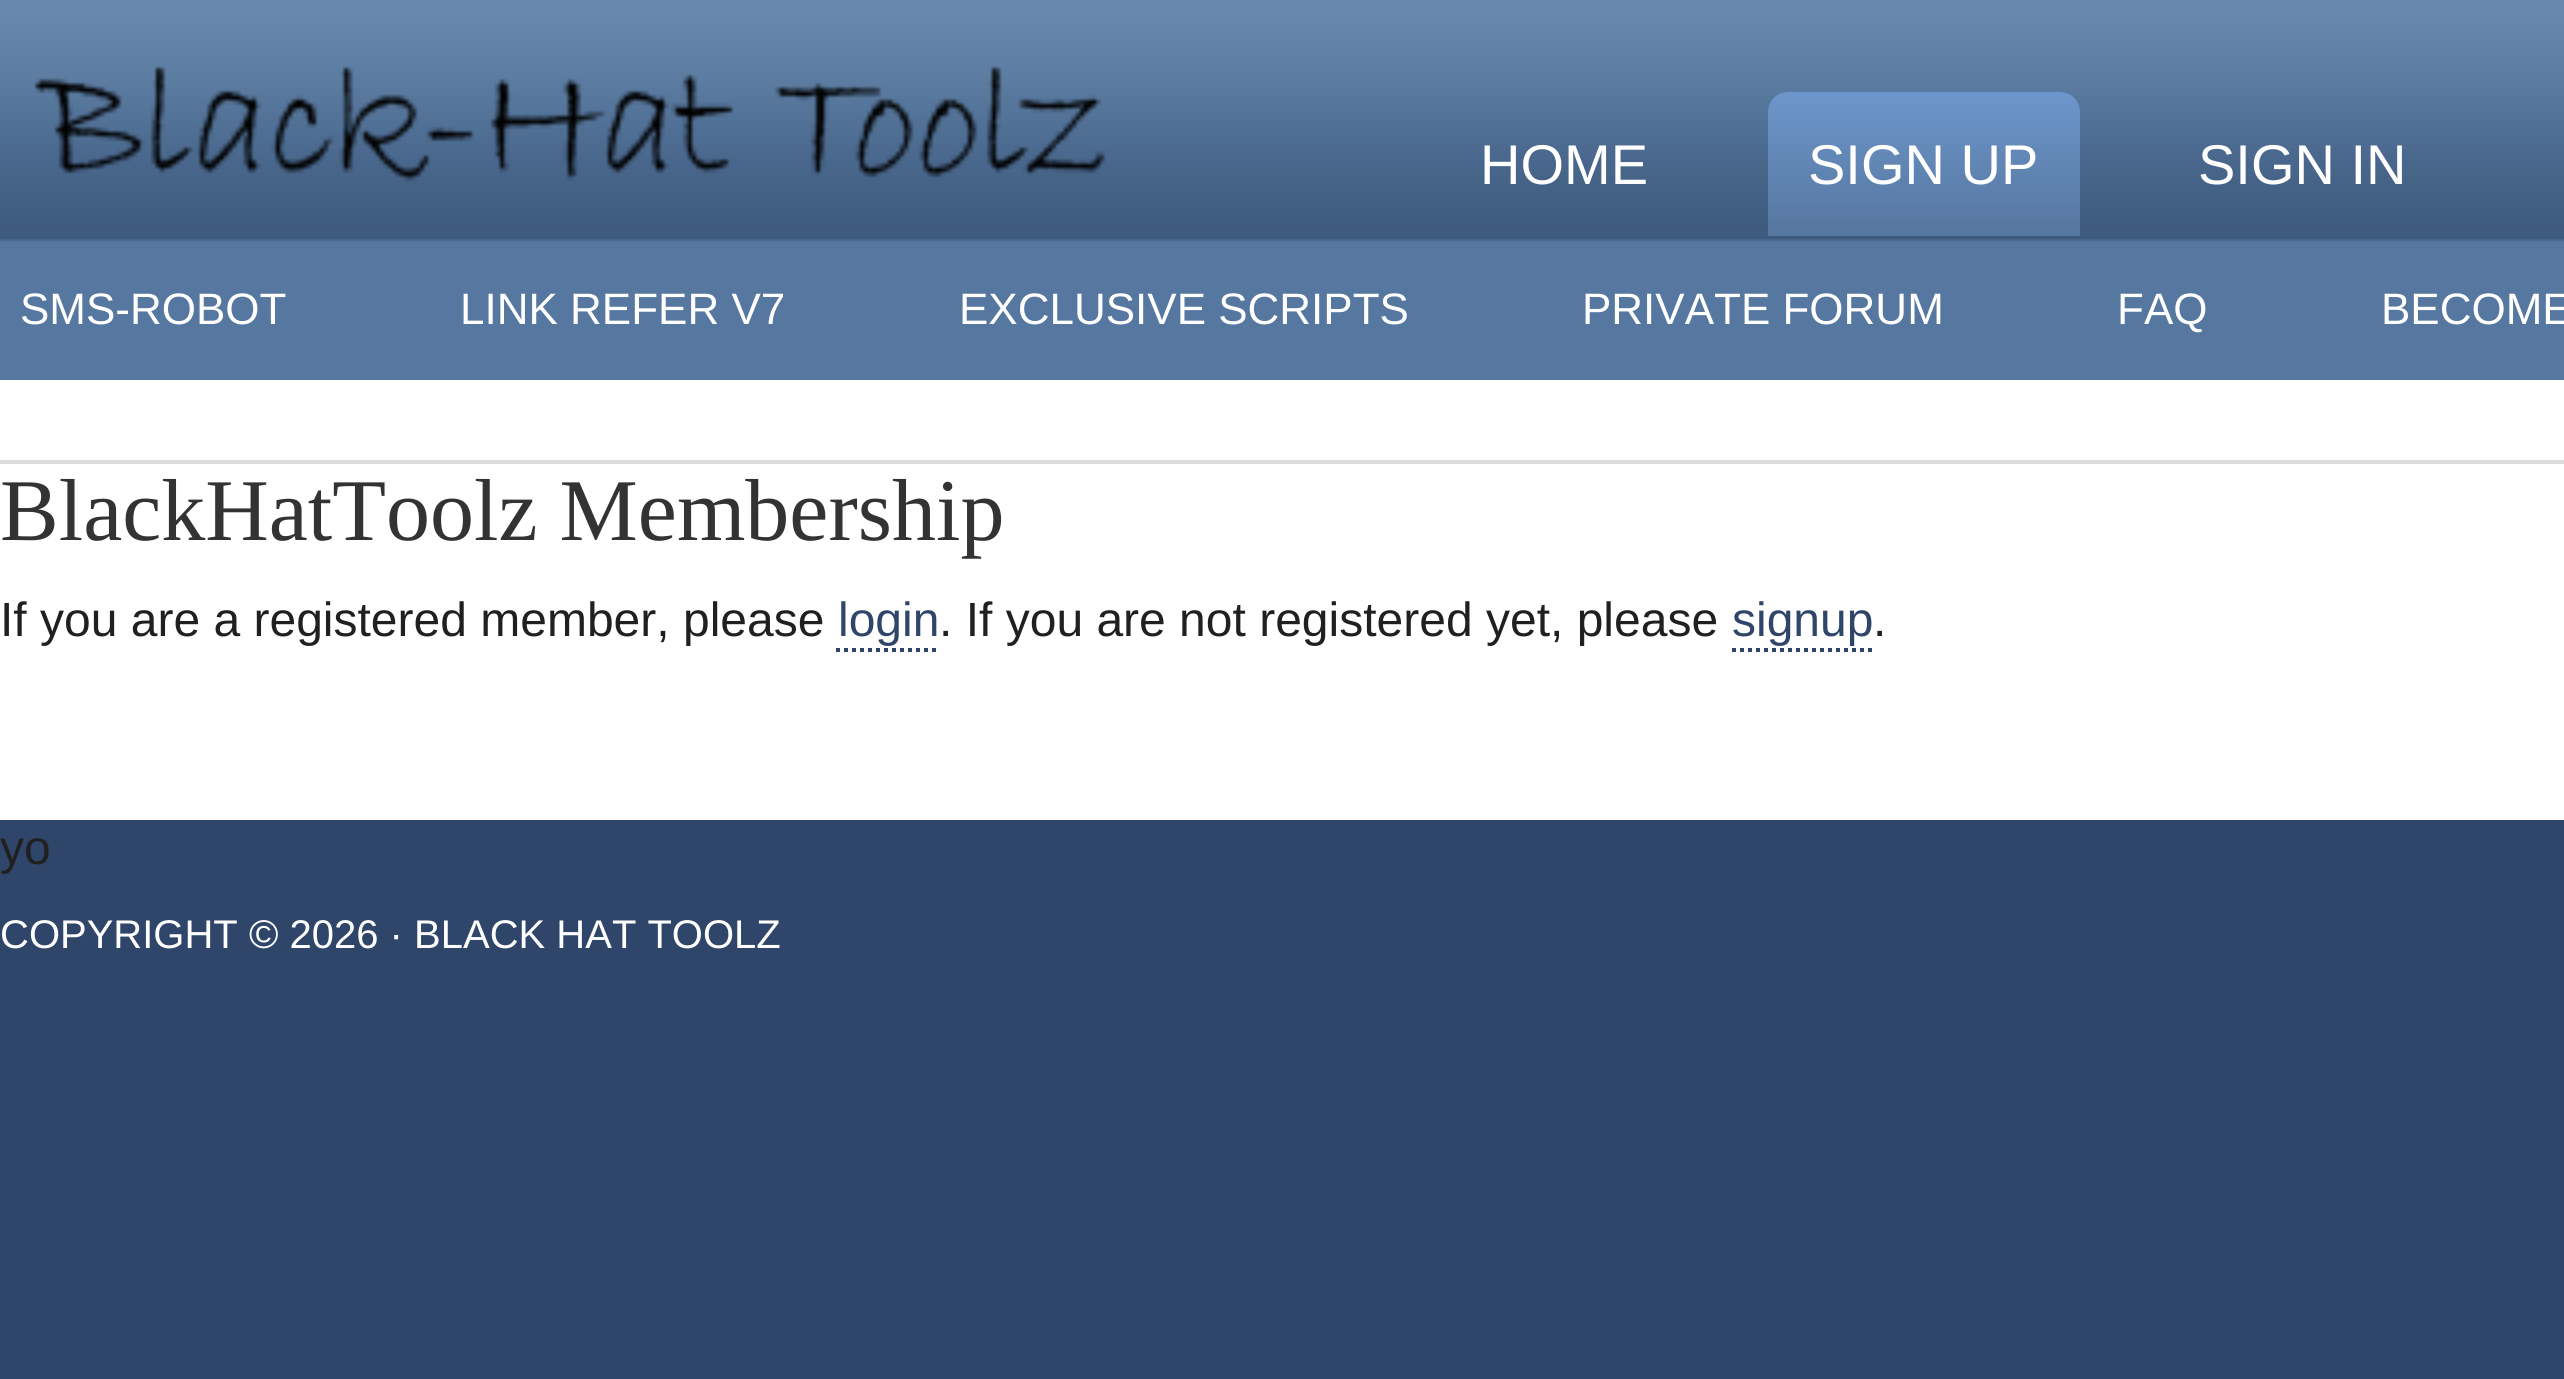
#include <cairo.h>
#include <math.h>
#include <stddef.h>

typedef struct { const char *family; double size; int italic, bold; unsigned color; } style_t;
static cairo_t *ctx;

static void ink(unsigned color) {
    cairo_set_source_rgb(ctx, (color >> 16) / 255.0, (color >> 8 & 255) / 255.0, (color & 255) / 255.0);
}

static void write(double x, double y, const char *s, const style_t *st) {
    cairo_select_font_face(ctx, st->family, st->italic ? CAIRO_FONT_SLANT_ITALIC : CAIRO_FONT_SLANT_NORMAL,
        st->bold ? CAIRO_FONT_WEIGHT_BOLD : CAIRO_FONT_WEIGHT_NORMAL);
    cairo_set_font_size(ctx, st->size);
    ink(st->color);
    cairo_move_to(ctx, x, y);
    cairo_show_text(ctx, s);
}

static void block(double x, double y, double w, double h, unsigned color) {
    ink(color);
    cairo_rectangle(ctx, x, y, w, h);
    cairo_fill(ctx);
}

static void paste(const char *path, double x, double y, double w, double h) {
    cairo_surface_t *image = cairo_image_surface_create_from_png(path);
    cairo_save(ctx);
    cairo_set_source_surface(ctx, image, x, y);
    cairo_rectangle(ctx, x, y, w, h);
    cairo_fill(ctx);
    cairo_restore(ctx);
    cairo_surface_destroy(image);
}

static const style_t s1 = {"Liberation Sans", 56, 0, 0, 0xffffff};
static const style_t s2 = {"Liberation Sans", 44, 0, 0, 0xffffff};
static const style_t s3 = {"Liberation Serif", 88, 0, 0, 0x333333};
static const style_t s4 = {"Liberation Sans", 48, 0, 0, 0x202020};
static const style_t s5 = {"Liberation Sans", 48, 0, 0, 0x2f466a};
static const style_t s6 = {"Liberation Sans", 40, 0, 0, 0xffffff};

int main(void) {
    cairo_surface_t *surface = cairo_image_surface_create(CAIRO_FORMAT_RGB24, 2564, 1379);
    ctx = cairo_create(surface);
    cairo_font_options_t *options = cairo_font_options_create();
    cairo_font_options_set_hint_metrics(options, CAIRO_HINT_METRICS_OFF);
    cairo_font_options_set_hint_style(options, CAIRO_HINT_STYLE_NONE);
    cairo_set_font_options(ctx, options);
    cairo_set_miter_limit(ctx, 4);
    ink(0x2f466a);
    cairo_paint(ctx);
    paste("pic1.png", 0, 0, 2564, 380);
    paste("pic2.png", 34, 66, 1072, 116);
    write(1480, 184, "HOME", &s1);
    ink(0x5677a0);
    cairo_new_path(ctx);
    cairo_move_to(ctx, 1788, 92);
    cairo_line_to(ctx, 2060, 92);
    cairo_curve_to(ctx, 2071, 92, 2080, 101, 2080, 112);
    cairo_line_to(ctx, 2080, 236);
    cairo_line_to(ctx, 1768, 236);
    cairo_line_to(ctx, 1768, 112);
    cairo_curve_to(ctx, 1768, 101, 1777, 92, 1788, 92);
    cairo_close_path(ctx);
    cairo_fill(ctx);
    paste("pic3.png", 1768, 92, 312, 128);
    write(1808, 184, "SIGN UP", &s1);
    write(2198, 184, "SIGN IN", &s1);
    write(20, 324, "SMS-ROBOT", &s2);
    write(460, 324, "LINK REFER V7", &s2);
    write(959, 324, "EXCLUSIVE SCRIPTS", &s2);
    write(1582, 324, "PRIVATE FORUM", &s2);
    write(2117, 324, "FAQ", &s2);
    write(2381, 324, "BECOME", &s2);
    block(0, 380, 2564, 440, 0xffffff);
    block(0, 460, 2564, 4, 0xdddddd);
    write(0, 540, "BlackHatToolz Membership", &s3);
    write(0, 636, "If you are a registered member, please", &s4);
    write(838, 636, "login", &s5);
    cairo_new_path(ctx);
    cairo_move_to(ctx, 836, 650);
    cairo_line_to(ctx, 940, 650);
    cairo_set_line_width(ctx, 4);
    cairo_set_dash(ctx, (double[]){4, 4}, 2, 0);
    cairo_stroke(ctx);
    write(939, 636, ". If you are not registered yet, please", &s4);
    write(1732, 636, "signup", &s5);
    cairo_new_path(ctx);
    cairo_move_to(ctx, 1732, 650);
    cairo_line_to(ctx, 1872, 650);
    cairo_stroke(ctx);
    write(1873, 636, ".", &s4);
    write(0, 864, "yo", &s4);
    write(0, 948, "COPYRIGHT © 2026 · BLACK HAT TOOLZ", &s6);
    cairo_surface_write_to_png(surface, "screenshot.png");
    cairo_font_options_destroy(options);
    cairo_destroy(ctx);
    cairo_surface_destroy(surface);
    return 0;
}
